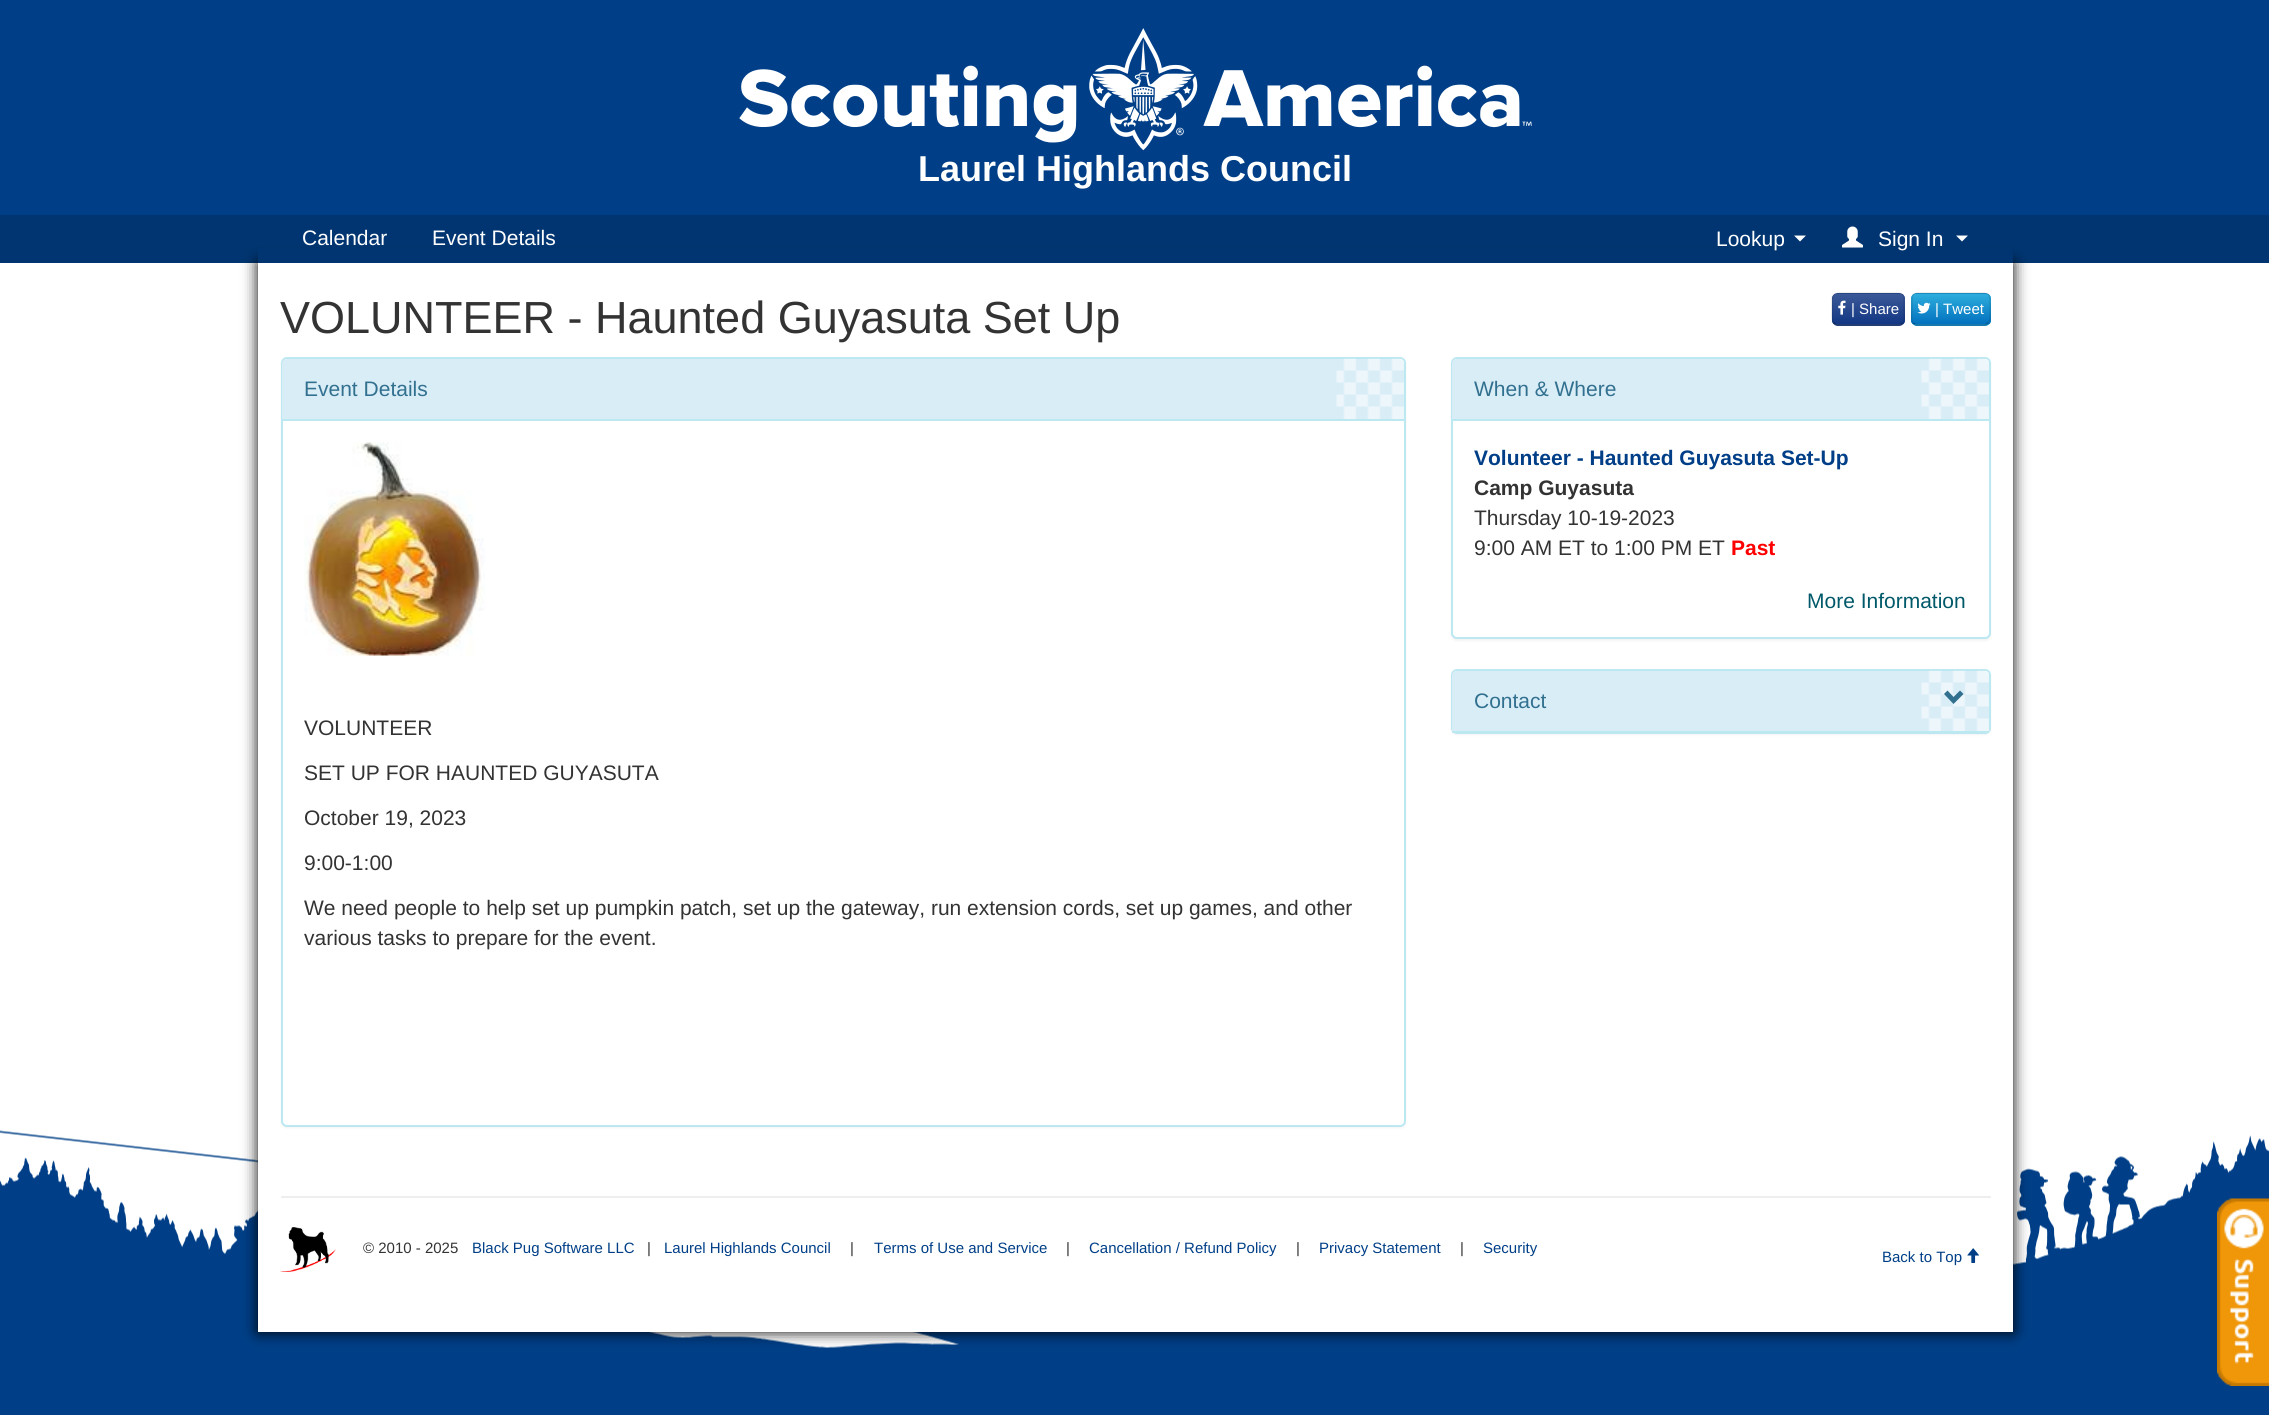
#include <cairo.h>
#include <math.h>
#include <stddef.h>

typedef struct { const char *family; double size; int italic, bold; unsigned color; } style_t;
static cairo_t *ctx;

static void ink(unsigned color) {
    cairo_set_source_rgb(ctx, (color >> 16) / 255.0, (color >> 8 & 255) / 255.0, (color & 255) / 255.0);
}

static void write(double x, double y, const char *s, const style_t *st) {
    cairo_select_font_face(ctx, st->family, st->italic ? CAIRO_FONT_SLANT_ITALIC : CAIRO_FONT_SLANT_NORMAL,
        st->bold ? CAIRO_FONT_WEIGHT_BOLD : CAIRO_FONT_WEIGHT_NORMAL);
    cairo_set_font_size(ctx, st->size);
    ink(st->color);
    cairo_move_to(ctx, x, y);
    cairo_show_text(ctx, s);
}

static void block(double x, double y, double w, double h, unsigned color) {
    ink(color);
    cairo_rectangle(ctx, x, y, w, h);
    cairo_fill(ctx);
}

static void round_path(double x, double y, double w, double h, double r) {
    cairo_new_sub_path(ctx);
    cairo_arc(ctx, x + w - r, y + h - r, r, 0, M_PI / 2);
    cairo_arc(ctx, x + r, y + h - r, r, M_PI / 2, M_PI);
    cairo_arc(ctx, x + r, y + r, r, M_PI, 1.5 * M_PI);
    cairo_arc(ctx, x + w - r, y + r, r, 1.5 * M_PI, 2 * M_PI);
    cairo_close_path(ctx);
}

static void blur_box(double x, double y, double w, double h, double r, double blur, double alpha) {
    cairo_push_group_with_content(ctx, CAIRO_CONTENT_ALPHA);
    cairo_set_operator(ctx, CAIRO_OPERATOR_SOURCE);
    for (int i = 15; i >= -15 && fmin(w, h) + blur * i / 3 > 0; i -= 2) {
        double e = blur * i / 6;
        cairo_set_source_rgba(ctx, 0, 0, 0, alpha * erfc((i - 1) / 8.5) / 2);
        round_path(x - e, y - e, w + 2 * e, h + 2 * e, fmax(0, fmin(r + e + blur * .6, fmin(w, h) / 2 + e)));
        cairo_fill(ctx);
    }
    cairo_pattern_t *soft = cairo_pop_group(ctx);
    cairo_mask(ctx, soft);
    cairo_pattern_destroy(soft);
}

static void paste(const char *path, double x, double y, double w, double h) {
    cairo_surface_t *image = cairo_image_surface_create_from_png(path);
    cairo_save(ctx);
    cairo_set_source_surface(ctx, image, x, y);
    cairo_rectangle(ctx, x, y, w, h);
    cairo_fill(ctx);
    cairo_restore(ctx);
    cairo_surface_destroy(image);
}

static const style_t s1 = {"Liberation Sans", 36, 0, 1, 0xffffff};
static const style_t s2 = {"Liberation Sans", 21, 0, 0, 0xffffff};
static const style_t s3 = {"Liberation Sans", 45, 0, 0, 0x333333};
static const style_t s4 = {"Liberation Sans", 15, 0, 0, 0xffffff};
static const style_t s5 = {"Liberation Sans", 21, 0, 0, 0x31708f};
static const style_t s6 = {"Liberation Sans", 21, 0, 0, 0x333333};
static const style_t s7 = {"Liberation Sans", 21, 0, 1, 0x003f87};
static const style_t s8 = {"Liberation Sans", 21, 0, 1, 0x333333};
static const style_t s9 = {"Liberation Sans", 21, 0, 1, 0xff0000};
static const style_t s10 = {"Liberation Sans", 21, 0, 0, 0x005969};
static const style_t s11 = {"Liberation Sans", 15, 0, 0, 0x333333};
static const style_t s12 = {"Liberation Sans", 15, 0, 0, 0x003f87};

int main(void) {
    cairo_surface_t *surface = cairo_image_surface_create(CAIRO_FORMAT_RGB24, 2269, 1415);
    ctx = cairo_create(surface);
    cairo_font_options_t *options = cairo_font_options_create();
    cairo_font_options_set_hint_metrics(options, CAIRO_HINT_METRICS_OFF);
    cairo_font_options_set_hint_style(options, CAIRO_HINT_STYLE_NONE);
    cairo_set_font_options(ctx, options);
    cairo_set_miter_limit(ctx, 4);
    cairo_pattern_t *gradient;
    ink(0xffffff);
    cairo_paint(ctx);
    block(0, 0, 2269, 215, 0x003f87);
    paste("pic1.png", 739, 28, 793, 123);
    write(918, 181, "Laurel Highlands Council", &s1);
    block(0, 215, 2269, 48, 0x003571);
    block(0, 1130, 2269, 285, 0x003f87);
    paste("pic7.png", 0, 1097, 2269, 251);
    ink(0x000000);
    blur_box(258, 263, 1755, 1069, 0, 7.5, 1);
    block(258, 248, 1755, 15, 0x003571);
    write(302, 245, "Calendar", &s2);
    write(432, 245, "Event Details", &s2);
    write(1716, 246, "Lookup", &s2);
    cairo_new_path(ctx);
    cairo_move_to(ctx, 1794, 235.5);
    cairo_line_to(ctx, 1806, 235.5);
    cairo_line_to(ctx, 1800, 241.5);
    cairo_close_path(ctx);
    cairo_fill(ctx);
    paste("pic2.png", 1842, 226, 21, 22);
    write(1878, 246, "Sign In", &s2);
    cairo_new_path(ctx);
    cairo_move_to(ctx, 1956, 235.5);
    cairo_line_to(ctx, 1968, 235.5);
    cairo_line_to(ctx, 1962, 241.5);
    cairo_close_path(ctx);
    cairo_fill(ctx);
    block(258, 263, 1755, 1069, 0xffffff);
    write(280, 333, "VOLUNTEER - Haunted Guyasuta Set Up", &s3);
    ink(0x2b4b90);
    round_path(1832, 293, 73, 33, 6);
    cairo_fill(ctx);
    cairo_save(ctx);
    round_path(1832, 293, 73, 33, 6);
    cairo_clip(ctx);
    gradient = cairo_pattern_create_linear(1868, 294, 1868, 324);
    cairo_pattern_add_color_stop_rgba(gradient, 0, 0.231, 0.349, 0.596, 1);
    cairo_pattern_add_color_stop_rgba(gradient, 1, 0.075, 0.216, 0.514, 1);
    cairo_set_source(ctx, gradient);
    cairo_pattern_destroy(gradient);
    cairo_rectangle(ctx, 1832, 294, 73, 30);
    cairo_fill(ctx);
    cairo_restore(ctx);
    cairo_new_path(ctx);
    cairo_move_to(ctx, 1902.5, 323);
    cairo_curve_to(ctx, 1901.5, 324, 1900.5, 325, 1899, 325);
    cairo_line_to(ctx, 1837.5, 325);
    cairo_curve_to(ctx, 1836, 325, 1835, 324, 1834, 323);
    cairo_set_source_rgba(ctx, 0, 0, 0, 0.25);
    cairo_set_line_width(ctx, 1.5);
    cairo_stroke(ctx);
    cairo_new_path(ctx);
    cairo_move_to(ctx, 1834, 323);
    cairo_curve_to(ctx, 1831, 320.5, 1832, 312.5, 1832, 309);
    cairo_curve_to(ctx, 1832, 292.5, 1831, 293, 1848, 293);
    cairo_line_to(ctx, 1889, 293);
    cairo_curve_to(ctx, 1905.5, 293, 1904, 292.5, 1904, 309);
    cairo_curve_to(ctx, 1904, 312.5, 1905.5, 320.5, 1902.5, 323);
    cairo_set_source_rgba(ctx, 0, 0, 0, 0.1);
    cairo_stroke(ctx);
    paste("pic3.png", 1838, 300, 8, 15);
    write(1851, 314, "| Share", &s4);
    ink(0x1c95d0);
    round_path(1911, 293, 80, 33, 6);
    cairo_fill(ctx);
    cairo_save(ctx);
    round_path(1911, 293, 80, 33, 6);
    cairo_clip(ctx);
    gradient = cairo_pattern_create_linear(1951, 294, 1951, 324);
    cairo_pattern_add_color_stop_rgba(gradient, 0, 0.176, 0.678, 0.863, 1);
    cairo_pattern_add_color_stop_rgba(gradient, 1, 0.008, 0.443, 0.749, 1);
    cairo_set_source(ctx, gradient);
    cairo_pattern_destroy(gradient);
    cairo_rectangle(ctx, 1911, 294, 80, 30);
    cairo_fill(ctx);
    cairo_restore(ctx);
    cairo_new_path(ctx);
    cairo_move_to(ctx, 1988, 323);
    cairo_curve_to(ctx, 1987, 324, 1986, 325, 1984.5, 325);
    cairo_line_to(ctx, 1917, 325);
    cairo_curve_to(ctx, 1915.5, 325, 1914.5, 324, 1913.5, 323);
    cairo_set_source_rgba(ctx, 0, 0, 0, 0.25);
    cairo_stroke(ctx);
    cairo_new_path(ctx);
    cairo_move_to(ctx, 1913.5, 323);
    cairo_curve_to(ctx, 1910.5, 320.5, 1912, 312.5, 1912, 309);
    cairo_curve_to(ctx, 1912, 292, 1910.5, 293, 1928, 293);
    cairo_line_to(ctx, 1973, 293);
    cairo_curve_to(ctx, 1991, 293, 1990, 292, 1990, 309);
    cairo_curve_to(ctx, 1990, 312.5, 1991, 320.5, 1988, 323);
    cairo_set_source_rgba(ctx, 0, 0, 0, 0.1);
    cairo_stroke(ctx);
    paste("pic4.png", 1917, 302, 14, 12);
    write(1935, 314, "| Tweet", &s4);
    ink(0x000000);
    blur_box(281, 359, 1125, 769, 6, 1, 0.05);
    ink(0xffffff);
    round_path(282, 358, 1123, 768, 5);
    cairo_fill_preserve(ctx);
    ink(0xbce8f1);
    cairo_set_line_width(ctx, 2);
    cairo_stroke(ctx);
    ink(0xd9edf7);
    cairo_new_path(ctx);
    cairo_move_to(ctx, 287, 359);
    cairo_line_to(ctx, 1399, 359);
    cairo_curve_to(ctx, 1402, 359, 1404, 361, 1404, 364);
    cairo_line_to(ctx, 1404, 420);
    cairo_line_to(ctx, 282, 420);
    cairo_line_to(ctx, 282, 364);
    cairo_curve_to(ctx, 282, 361, 284, 359, 287, 359);
    cairo_close_path(ctx);
    cairo_fill(ctx);
    paste("pic5.png", 1336, 358, 68, 61);
    block(282, 419, 1122, 2, 0xbce8f1);
    write(304, 396, "Event Details", &s5);
    paste("pic6.png", 304, 442, 182, 214);
    write(304, 735, "VOLUNTEER", &s6);
    write(304, 780, "SET UP FOR HAUNTED GUYASUTA", &s6);
    write(304, 825, "October 19, 2023", &s6);
    write(304, 870, "9:00-1:00", &s6);
    write(304, 915, "We need people to help set up pumpkin patch, set up the gateway, run extension cords, set up games, and other", &s6);
    write(304, 945, "various tasks to prepare for the event.", &s6);
    ink(0x000000);
    blur_box(1451, 359, 540, 282, 6, 1, 0.05);
    ink(0xffffff);
    round_path(1452, 358, 538, 280, 5);
    cairo_fill_preserve(ctx);
    ink(0xbce8f1);
    cairo_stroke(ctx);
    ink(0xd9edf7);
    cairo_new_path(ctx);
    cairo_move_to(ctx, 1457, 359);
    cairo_line_to(ctx, 1984, 359);
    cairo_curve_to(ctx, 1987, 359, 1989, 361, 1989, 364);
    cairo_line_to(ctx, 1989, 420);
    cairo_line_to(ctx, 1452, 420);
    cairo_line_to(ctx, 1452, 364);
    cairo_curve_to(ctx, 1452, 361, 1454, 359, 1457, 359);
    cairo_close_path(ctx);
    cairo_fill(ctx);
    paste("pic5.png", 1921, 358, 68, 61);
    block(1452, 419, 537, 2, 0xbce8f1);
    write(1474, 396, "When & Where", &s5);
    write(1474, 465, "Volunteer - Haunted Guyasuta Set-Up", &s7);
    write(1474, 495, "Camp Guyasuta", &s8);
    write(1474, 525, "Thursday 10-19-2023", &s6);
    write(1474, 555, "9:00 AM ET to 1:00 PM ET", &s6);
    write(1731, 555, "Past", &s9);
    write(1807, 608, "More Information", &s10);
    ink(0x000000);
    blur_box(1451, 671, 540, 64, 6, 1, 0.05);
    ink(0xffffff);
    round_path(1452, 670, 538, 63, 5);
    cairo_fill_preserve(ctx);
    ink(0xbce8f1);
    cairo_stroke(ctx);
    ink(0xd9edf7);
    cairo_new_path(ctx);
    cairo_move_to(ctx, 1457, 671);
    cairo_line_to(ctx, 1984, 671);
    cairo_curve_to(ctx, 1987, 671, 1989, 673, 1989, 676);
    cairo_line_to(ctx, 1989, 732);
    cairo_line_to(ctx, 1452, 732);
    cairo_line_to(ctx, 1452, 676);
    cairo_curve_to(ctx, 1452, 673, 1454, 671, 1457, 671);
    cairo_close_path(ctx);
    cairo_fill(ctx);
    paste("pic5.png", 1921, 670, 68, 61);
    block(1452, 731, 537, 2, 0xbce8f1);
    write(1474, 708, "Contact", &s5);
    cairo_new_path(ctx);
    cairo_move_to(ctx, 1963.5, 694);
    cairo_line_to(ctx, 1953.5, 704);
    cairo_line_to(ctx, 1944, 694);
    cairo_line_to(ctx, 1947.5, 690.5);
    cairo_line_to(ctx, 1953.5, 697);
    cairo_line_to(ctx, 1960, 690.5);
    cairo_close_path(ctx);
    cairo_fill(ctx);
    block(281, 1196, 1710, 2, 0xeeeeee);
    paste("pic8.png", 280, 1227, 56, 45);
    write(363, 1253, "© 2010 - 2025", &s11);
    write(472, 1253, "Black Pug Software LLC", &s12);
    write(647, 1253, "|", &s11);
    write(664, 1253, "Laurel Highlands Council", &s12);
    write(850, 1253, "|", &s11);
    write(874, 1253, "Terms of Use and Service", &s12);
    write(1066, 1253, "|", &s11);
    write(1089, 1253, "Cancellation / Refund Policy", &s12);
    write(1296, 1253, "|", &s11);
    write(1319, 1253, "Privacy Statement", &s12);
    write(1460, 1253, "|", &s11);
    write(1483, 1253, "Security", &s12);
    write(1882, 1262, "Back to Top", &s12);
    paste("pic9.png", 1967, 1248, 12, 15);
    paste("pic10.png", 2217, 1198, 52, 188);
    cairo_surface_write_to_png(surface, "screenshot.png");
    cairo_font_options_destroy(options);
    cairo_destroy(ctx);
    cairo_surface_destroy(surface);
    return 0;
}
